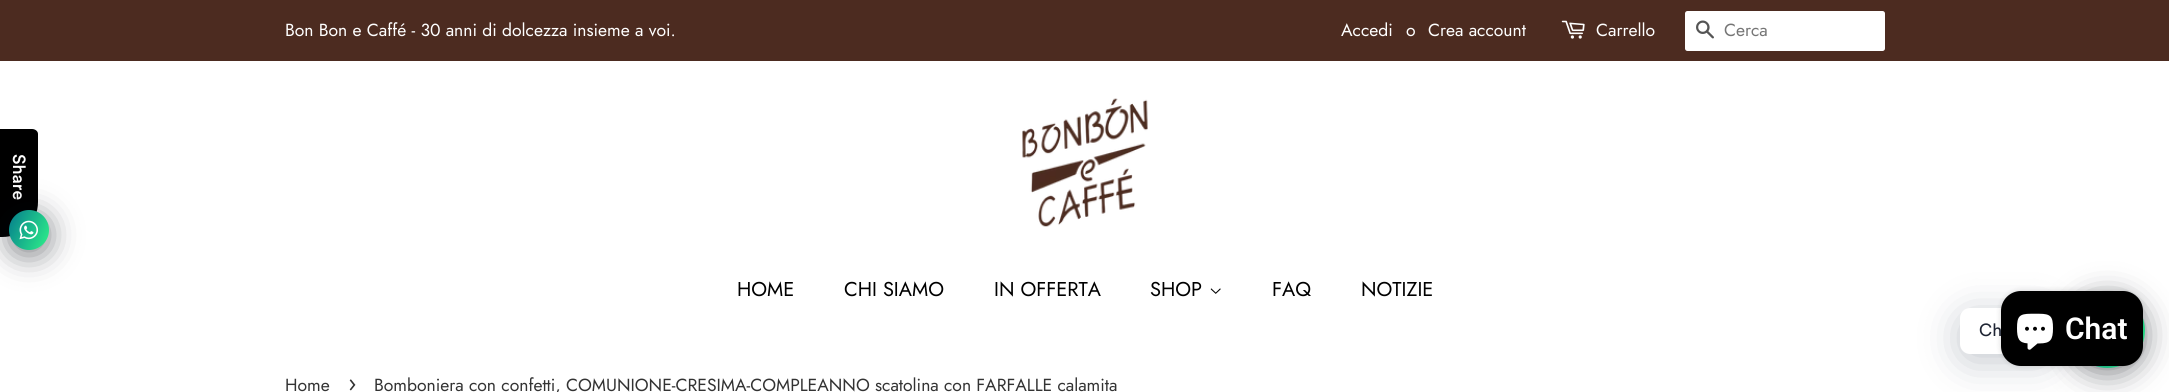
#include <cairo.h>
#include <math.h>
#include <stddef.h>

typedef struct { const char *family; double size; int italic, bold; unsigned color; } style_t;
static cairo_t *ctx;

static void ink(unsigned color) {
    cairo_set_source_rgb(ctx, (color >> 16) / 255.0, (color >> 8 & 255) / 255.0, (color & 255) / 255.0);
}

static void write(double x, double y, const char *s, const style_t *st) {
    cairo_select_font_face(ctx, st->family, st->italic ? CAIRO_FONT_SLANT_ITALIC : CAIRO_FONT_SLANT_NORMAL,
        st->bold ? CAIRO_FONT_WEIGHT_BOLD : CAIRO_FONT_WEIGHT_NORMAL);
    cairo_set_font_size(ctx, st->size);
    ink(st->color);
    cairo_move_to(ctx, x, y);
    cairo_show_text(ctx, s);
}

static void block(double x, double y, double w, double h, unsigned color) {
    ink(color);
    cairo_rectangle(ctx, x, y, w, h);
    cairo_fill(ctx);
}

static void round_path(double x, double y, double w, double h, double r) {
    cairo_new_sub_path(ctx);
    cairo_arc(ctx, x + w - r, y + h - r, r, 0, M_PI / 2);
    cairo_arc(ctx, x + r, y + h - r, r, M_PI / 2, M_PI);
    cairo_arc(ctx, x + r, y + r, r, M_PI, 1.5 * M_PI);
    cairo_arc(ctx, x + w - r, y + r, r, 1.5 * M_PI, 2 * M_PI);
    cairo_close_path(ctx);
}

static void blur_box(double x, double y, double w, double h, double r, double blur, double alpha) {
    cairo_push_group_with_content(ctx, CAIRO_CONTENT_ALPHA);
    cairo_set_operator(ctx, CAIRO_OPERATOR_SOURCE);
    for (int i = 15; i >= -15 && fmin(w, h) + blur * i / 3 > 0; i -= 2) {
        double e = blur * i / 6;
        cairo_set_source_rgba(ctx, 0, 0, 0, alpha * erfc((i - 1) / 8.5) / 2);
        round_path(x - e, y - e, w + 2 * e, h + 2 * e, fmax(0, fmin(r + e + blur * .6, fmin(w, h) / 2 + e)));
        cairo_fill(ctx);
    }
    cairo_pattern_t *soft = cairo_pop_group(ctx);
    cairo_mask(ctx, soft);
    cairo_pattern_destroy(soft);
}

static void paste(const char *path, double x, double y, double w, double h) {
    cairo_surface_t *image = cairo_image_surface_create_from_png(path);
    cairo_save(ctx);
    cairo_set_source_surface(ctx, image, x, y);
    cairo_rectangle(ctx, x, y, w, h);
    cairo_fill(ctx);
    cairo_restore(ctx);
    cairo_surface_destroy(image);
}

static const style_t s1 = {"Jost", 17.5, 0, 0, 0xffffff};
static const style_t s2 = {"Jost", 17.5, 0, 0, 0x757575};
static const style_t s3 = {"Jost", 20, 0, 0, 0x000000};
static const style_t s4 = {"Circular Medium", 17.5, 0, 0, 0xffffff};
static const style_t s5 = {"Circular", 17.5, 0, 0, 0x1e2433};
static const style_t s6 = {"Roboto SemiBold", 30, 0, 0, 0xffffff};
static const style_t s7 = {"Jost", 17.5, 0, 0, 0x333333};
static const style_t s8 = {"Jost", 24, 0, 0, 0x333333};

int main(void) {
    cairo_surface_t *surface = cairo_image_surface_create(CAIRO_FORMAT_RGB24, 2169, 392);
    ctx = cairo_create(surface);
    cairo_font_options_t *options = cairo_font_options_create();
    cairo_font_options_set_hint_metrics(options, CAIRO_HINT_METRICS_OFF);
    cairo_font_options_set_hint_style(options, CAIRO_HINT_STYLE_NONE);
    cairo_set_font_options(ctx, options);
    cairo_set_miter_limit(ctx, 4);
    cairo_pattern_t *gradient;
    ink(0xffffff);
    cairo_paint(ctx);
    block(0, 0, 2169, 61, 0x4c2b20);
    write(285, 36, "Bon Bon e Caffé - 30 anni di dolcezza insieme a voi.", &s1);
    write(1341, 36, "Accedi", &s1);
    write(1406, 36, "o", &s1);
    write(1428, 36, "Crea account", &s1);
    paste("pic1.png", 1561, 20, 24, 19);
    write(1596, 36, "Carrello", &s1);
    round_path(1685, 11, 200, 40, 2.5);
    cairo_fill(ctx);
    paste("pic2.png", 1696, 20, 18, 19);
    write(1724, 36, "Cerca", &s2);
    paste("pic3.png", 1022, 98, 126, 129);
    write(737, 296, "HOME", &s3);
    write(844, 296, "CHI SIAMO", &s3);
    write(994, 296, "IN OFFERTA", &s3);
    write(1150, 296, "SHOP", &s3);
    paste("pic4.png", 1210, 288, 11, 6);
    write(1272, 296, "FAQ", &s3);
    write(1361, 296, "NOTIZIE", &s3);
    cairo_new_path(ctx);
    cairo_move_to(ctx, 0, 237);
    cairo_line_to(ctx, 0, 129);
    cairo_line_to(ctx, 32, 129);
    cairo_curve_to(ctx, 35, 129, 38, 131, 38, 134);
    cairo_line_to(ctx, 38, 202);
    cairo_curve_to(ctx, 38, 222, 22, 237, 2, 237);
    cairo_close_path(ctx);
    cairo_fill(ctx);
    cairo_save(ctx);
    cairo_translate(ctx, 13, 154);
    cairo_rotate(ctx, 90 * M_PI / 180);
    write(0, 0, "Share", &s4);
    cairo_restore(ctx);
    ink(0x020610);
    blur_box(9, 215, 40, 40, 20, 15, 0.5);
    gradient = cairo_pattern_create_linear(4.7, 219, 53, 241);
    cairo_pattern_add_color_stop_rgba(gradient, 0, 0.016, 0.486, 0.553, 1);
    cairo_pattern_add_color_stop_rgba(gradient, 1, 0.184, 0.949, 0.537, 1);
    cairo_set_source(ctx, gradient);
    cairo_pattern_destroy(gradient);
    cairo_arc(ctx, 29, 230, 20, 0, 2 * M_PI);
    cairo_fill(ctx);
    paste("pic5.png", 19, 220, 19, 20);
    ink(0x020610);
    blur_box(2070, 298, 75, 75, 37.5, 15, 0.5);
    gradient = cairo_pattern_create_linear(2062, 309, 2153, 351);
    cairo_pattern_add_color_stop_rgba(gradient, 0, 0.016, 0.486, 0.553, 1);
    cairo_pattern_add_color_stop_rgba(gradient, 1, 0.184, 0.949, 0.537, 1);
    cairo_set_source(ctx, gradient);
    cairo_pattern_destroy(gradient);
    cairo_arc(ctx, 2107.5, 330.5, 37.5, 0, 2 * M_PI);
    cairo_fill(ctx);
    ink(0x00122e);
    blur_box(1960, 315, 91, 46, 10, 20, 0.24);
    ink(0xffffff);
    round_path(1960, 308, 91, 46, 10);
    cairo_fill(ctx);
    write(1979, 336, "Ch", &s5);
    ink(0x000000);
    blur_box(2001, 291, 142, 75, 20, 3, 0.15);
    ink(0x000000);
    round_path(2001, 291, 142, 75, 20);
    cairo_fill(ctx);
    paste("pic6.png", 2017, 313, 36, 37);
    write(2065, 339, "Chat", &s6);
    write(285, 391, "Home", &s7);
    write(348, 391, "›", &s8);
    write(374, 391, "Bomboniera con confetti, COMUNIONE-CRESIMA-COMPLEANNO scatolina con FARFALLE calamita", &s7);
    cairo_surface_write_to_png(surface, "screenshot.png");
    cairo_font_options_destroy(options);
    cairo_destroy(ctx);
    cairo_surface_destroy(surface);
    return 0;
}
